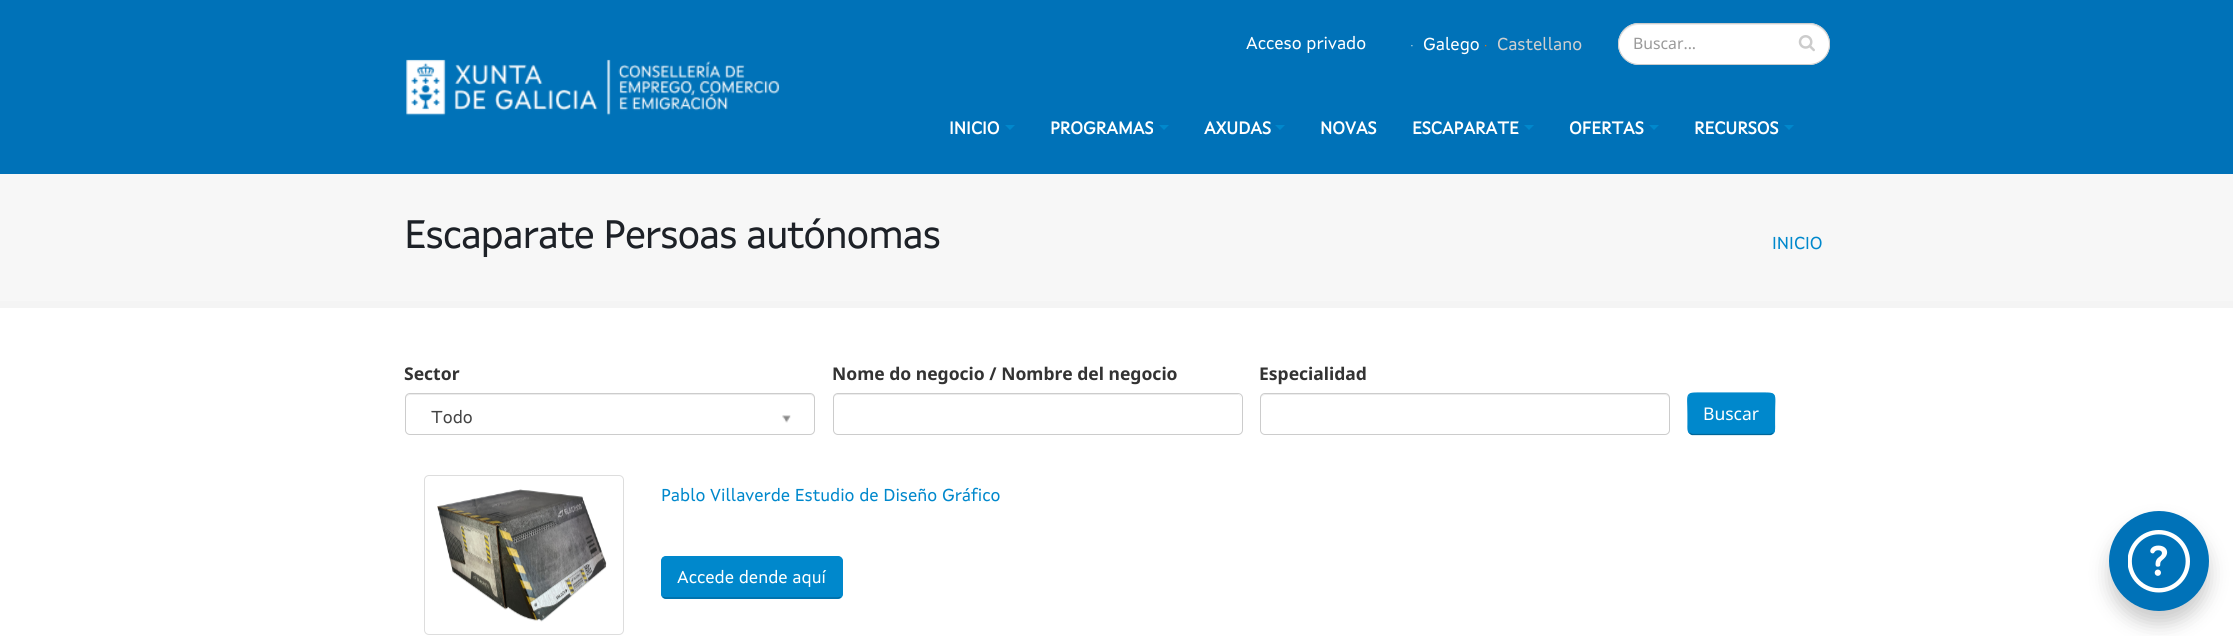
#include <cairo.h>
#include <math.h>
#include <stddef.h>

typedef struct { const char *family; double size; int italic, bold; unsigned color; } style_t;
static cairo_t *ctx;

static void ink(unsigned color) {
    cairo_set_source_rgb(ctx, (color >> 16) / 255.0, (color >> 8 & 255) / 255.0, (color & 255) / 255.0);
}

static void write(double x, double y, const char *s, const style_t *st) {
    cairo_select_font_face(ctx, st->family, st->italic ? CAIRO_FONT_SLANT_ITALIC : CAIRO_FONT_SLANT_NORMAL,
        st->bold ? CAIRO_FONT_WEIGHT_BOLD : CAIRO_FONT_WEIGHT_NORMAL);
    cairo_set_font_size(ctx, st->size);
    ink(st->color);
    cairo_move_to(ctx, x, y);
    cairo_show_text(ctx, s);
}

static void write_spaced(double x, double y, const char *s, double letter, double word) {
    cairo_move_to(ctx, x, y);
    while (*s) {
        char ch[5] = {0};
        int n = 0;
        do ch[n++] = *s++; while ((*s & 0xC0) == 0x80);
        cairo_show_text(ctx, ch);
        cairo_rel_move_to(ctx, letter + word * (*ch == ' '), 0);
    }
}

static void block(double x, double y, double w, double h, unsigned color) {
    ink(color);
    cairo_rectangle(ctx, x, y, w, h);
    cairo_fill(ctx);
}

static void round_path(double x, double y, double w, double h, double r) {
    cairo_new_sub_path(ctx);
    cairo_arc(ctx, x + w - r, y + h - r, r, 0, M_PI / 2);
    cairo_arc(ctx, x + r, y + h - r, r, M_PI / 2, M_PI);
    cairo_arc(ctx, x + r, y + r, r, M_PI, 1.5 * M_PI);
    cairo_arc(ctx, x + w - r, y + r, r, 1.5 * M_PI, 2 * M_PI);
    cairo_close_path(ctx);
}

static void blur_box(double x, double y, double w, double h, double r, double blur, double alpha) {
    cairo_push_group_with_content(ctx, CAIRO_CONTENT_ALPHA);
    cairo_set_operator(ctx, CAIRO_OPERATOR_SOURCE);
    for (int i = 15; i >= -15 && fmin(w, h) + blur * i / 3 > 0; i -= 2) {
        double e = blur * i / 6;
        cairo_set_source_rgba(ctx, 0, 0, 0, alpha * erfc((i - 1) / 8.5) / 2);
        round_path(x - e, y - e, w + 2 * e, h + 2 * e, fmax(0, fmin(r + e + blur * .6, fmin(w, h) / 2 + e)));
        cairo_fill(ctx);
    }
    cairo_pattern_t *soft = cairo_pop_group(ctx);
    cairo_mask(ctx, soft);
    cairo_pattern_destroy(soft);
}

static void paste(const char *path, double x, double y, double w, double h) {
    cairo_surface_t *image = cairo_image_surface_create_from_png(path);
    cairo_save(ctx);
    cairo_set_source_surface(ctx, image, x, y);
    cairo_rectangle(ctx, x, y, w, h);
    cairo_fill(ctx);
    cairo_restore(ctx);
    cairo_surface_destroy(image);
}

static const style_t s1 = {"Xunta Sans", 17.5, 0, 0, 0xffffff};
static const style_t s2 = {"Xunta Sans", 17.5, 0, 0, 0xcfcfcf};
static const style_t s3 = {"Noto Sans", 15.75, 0, 0, 0x999999};
static const style_t s4 = {"Xunta Sans", 17.5, 0, 1, 0xffffff};
static const style_t s5 = {"Xunta Sans", 17.5, 0, 0, 0x0088cc};
static const style_t s6 = {"Noto Sans", 17.5, 0, 1, 0x333333};
static const style_t s7 = {"Xunta Sans", 17.5, 0, 0, 0x444444};
static const style_t s8 = {"Noto Sans", 17.5, 0, 0, 0xffffff};

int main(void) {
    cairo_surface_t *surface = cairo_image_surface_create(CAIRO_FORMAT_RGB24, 2233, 636);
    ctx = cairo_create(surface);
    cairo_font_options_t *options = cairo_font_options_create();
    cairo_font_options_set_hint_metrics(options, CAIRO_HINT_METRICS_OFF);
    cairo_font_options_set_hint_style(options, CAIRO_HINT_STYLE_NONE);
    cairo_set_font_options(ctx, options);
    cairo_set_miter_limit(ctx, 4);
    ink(0xffffff);
    cairo_paint(ctx);
    block(0, 0, 2233, 174, 0x0072b8);
    paste("pic1.png", 406, 59, 374, 57);
    write(1246, 49, "Acceso privado", &s1);
    paste("pic2.png", 1411, 45, 2, 2);
    write(1423, 50, "Galego", &s1);
    paste("pic3.png", 1485, 45, 2, 2);
    write(1497, 50, "Castellano", &s2);
    ink(0xffffff);
    round_path(1618, 23, 212, 42, 21);
    cairo_fill(ctx);
    ink(0xececec);
    cairo_new_path(ctx);
    cairo_move_to(ctx, 1639, 25);
    cairo_line_to(ctx, 1809, 25);
    cairo_curve_to(ctx, 1820, 25, 1829, 34, 1829, 45);
    cairo_line_to(ctx, 1829, 44);
    cairo_curve_to(ctx, 1829, 33, 1820, 24, 1809, 24);
    cairo_line_to(ctx, 1639, 24);
    cairo_curve_to(ctx, 1628, 24, 1619, 33, 1619, 44);
    cairo_line_to(ctx, 1619, 45);
    cairo_curve_to(ctx, 1619, 34, 1628, 25, 1639, 25);
    cairo_close_path(ctx);
    cairo_fill(ctx);
    round_path(1618.5, 23.5, 211, 41, 20.5);
    ink(0xcccccc);
    cairo_set_line_width(ctx, 1);
    cairo_stroke(ctx);
    write(1633, 49, "Buscar...", &s3);
    paste("pic4.png", 1798, 35, 17, 17);
    write(949, 134, "INICIO", &s4);
    ink(0x0088cc);
    cairo_new_path(ctx);
    cairo_move_to(ctx, 1005, 125);
    cairo_line_to(ctx, 1015, 125);
    cairo_line_to(ctx, 1010, 130);
    cairo_close_path(ctx);
    cairo_fill(ctx);
    write(1050, 134, "PROGRAMAS", &s4);
    ink(0x0088cc);
    cairo_new_path(ctx);
    cairo_move_to(ctx, 1159, 125);
    cairo_line_to(ctx, 1169, 125);
    cairo_line_to(ctx, 1164, 130);
    cairo_close_path(ctx);
    cairo_fill(ctx);
    write(1204, 134, "AXUDAS", &s4);
    ink(0x0088cc);
    cairo_new_path(ctx);
    cairo_move_to(ctx, 1275, 125);
    cairo_line_to(ctx, 1285, 125);
    cairo_line_to(ctx, 1280, 130);
    cairo_close_path(ctx);
    cairo_fill(ctx);
    write(1320, 134, "NOVAS", &s4);
    write(1412, 134, "ESCAPARATE", &s4);
    ink(0x0088cc);
    cairo_new_path(ctx);
    cairo_move_to(ctx, 1524, 125);
    cairo_line_to(ctx, 1534, 125);
    cairo_line_to(ctx, 1529, 130);
    cairo_close_path(ctx);
    cairo_fill(ctx);
    write(1569, 134, "OFERTAS", &s4);
    ink(0x0088cc);
    cairo_new_path(ctx);
    cairo_move_to(ctx, 1649, 125);
    cairo_line_to(ctx, 1659, 125);
    cairo_line_to(ctx, 1654, 130);
    cairo_close_path(ctx);
    cairo_fill(ctx);
    write(1694, 134, "RECURSOS", &s4);
    ink(0x0088cc);
    cairo_new_path(ctx);
    cairo_move_to(ctx, 1784, 125);
    cairo_line_to(ctx, 1794, 125);
    cairo_line_to(ctx, 1789, 130);
    cairo_close_path(ctx);
    cairo_fill(ctx);
    block(0, 174, 2233, 127, 0xf7f7f7);
    block(0, 301, 2233, 7, 0xf4f4f4);
    cairo_select_font_face(ctx, "Xunta Sans", CAIRO_FONT_SLANT_NORMAL, CAIRO_FONT_WEIGHT_NORMAL);
    cairo_set_font_size(ctx, 40.25);
    ink(0x1d2127);
    write_spaced(404, 248, "Escaparate Persoas autónomas", -1.25, 0);
    write(1772, 249, "INICIO", &s5);
    write(404, 380, "Sector", &s6);
    ink(0xececec);
    cairo_new_path(ctx);
    cairo_move_to(ctx, 410, 395);
    cairo_line_to(ctx, 810, 395);
    cairo_curve_to(ctx, 812, 395, 814, 397, 814, 399);
    cairo_line_to(ctx, 814, 398);
    cairo_curve_to(ctx, 814, 396, 812, 394, 810, 394);
    cairo_line_to(ctx, 410, 394);
    cairo_curve_to(ctx, 408, 394, 406, 396, 406, 398);
    cairo_line_to(ctx, 406, 399);
    cairo_curve_to(ctx, 406, 397, 408, 395, 410, 395);
    cairo_close_path(ctx);
    cairo_fill(ctx);
    round_path(405.5, 393.5, 409, 41, 4.5);
    ink(0xcccccc);
    cairo_stroke(ctx);
    write(431, 423, "Todo", &s7);
    paste("pic5.png", 782, 415, 9, 8);
    write(832, 380, "Nome do negocio / Nombre del negocio", &s6);
    ink(0xececec);
    cairo_new_path(ctx);
    cairo_move_to(ctx, 838, 395);
    cairo_line_to(ctx, 1238, 395);
    cairo_curve_to(ctx, 1240, 395, 1241, 397, 1241, 399);
    cairo_line_to(ctx, 1241, 398);
    cairo_curve_to(ctx, 1241, 396, 1239, 394, 1237, 394);
    cairo_line_to(ctx, 838, 394);
    cairo_curve_to(ctx, 836, 394, 834, 396, 834, 398);
    cairo_line_to(ctx, 834, 399);
    cairo_curve_to(ctx, 834, 397, 835, 395, 838, 395);
    cairo_close_path(ctx);
    cairo_fill(ctx);
    round_path(833.5, 393.5, 409, 41, 4.5);
    ink(0xcccccc);
    cairo_stroke(ctx);
    write(1259, 380, "Especialidad", &s6);
    ink(0xececec);
    cairo_new_path(ctx);
    cairo_move_to(ctx, 1265, 395);
    cairo_line_to(ctx, 1665, 395);
    cairo_curve_to(ctx, 1667, 395, 1669, 397, 1669, 399);
    cairo_line_to(ctx, 1669, 398);
    cairo_curve_to(ctx, 1669, 396, 1667, 394, 1665, 394);
    cairo_line_to(ctx, 1265, 394);
    cairo_curve_to(ctx, 1263, 394, 1261, 396, 1261, 398);
    cairo_line_to(ctx, 1261, 399);
    cairo_curve_to(ctx, 1261, 397, 1263, 395, 1265, 395);
    cairo_close_path(ctx);
    cairo_fill(ctx);
    round_path(1260.5, 393.5, 409, 41, 4.5);
    ink(0xcccccc);
    cairo_stroke(ctx);
    ink(0x0088cc);
    round_path(1688, 393, 87, 42, 5);
    cairo_fill(ctx);
    cairo_new_path(ctx);
    cairo_move_to(ctx, 1773, 433);
    cairo_line_to(ctx, 1770.5, 434.5);
    cairo_line_to(ctx, 1692, 434.5);
    cairo_line_to(ctx, 1689.5, 433);
    ink(0x006699);
    cairo_set_line_width(ctx, 1.2);
    cairo_stroke(ctx);
    cairo_new_path(ctx);
    cairo_move_to(ctx, 1689.5, 433);
    cairo_curve_to(ctx, 1687.5, 431, 1688, 427, 1688, 424.5);
    cairo_line_to(ctx, 1688, 414);
    cairo_curve_to(ctx, 1688, 391.5, 1684, 393, 1705.5, 393);
    cairo_line_to(ctx, 1757, 393);
    cairo_curve_to(ctx, 1778.5, 393, 1774.5, 391.5, 1774.5, 414);
    cairo_line_to(ctx, 1774.5, 424.5);
    cairo_curve_to(ctx, 1774.5, 427, 1775, 431, 1773, 433);
    ink(0x0088cc);
    cairo_stroke(ctx);
    write(1703, 420, "Buscar", &s8);
    round_path(424.5, 475.5, 199, 159, 4.5);
    ink(0xdddddd);
    cairo_set_line_width(ctx, 1);
    cairo_stroke(ctx);
    paste("pic6.png", 437, 489, 170, 133);
    write(661, 501, "Pablo Villaverde Estudio de Diseño Gráfico", &s5);
    round_path(661, 556, 182, 43, 5);
    cairo_fill(ctx);
    cairo_new_path(ctx);
    cairo_move_to(ctx, 840.5, 597);
    cairo_curve_to(ctx, 840, 597.5, 838.5, 598, 837.5, 598);
    cairo_line_to(ctx, 666, 598);
    cairo_curve_to(ctx, 665, 598, 664, 597.5, 663, 597);
    ink(0x006699);
    cairo_set_line_width(ctx, 1.2);
    cairo_stroke(ctx);
    cairo_new_path(ctx);
    cairo_move_to(ctx, 663, 597);
    cairo_curve_to(ctx, 662.5, 596, 662, 595, 662, 594);
    cairo_line_to(ctx, 662, 561);
    cairo_curve_to(ctx, 662, 560, 662.5, 559, 663, 558);
    cairo_curve_to(ctx, 664, 557.5, 665, 557, 666, 557);
    cairo_line_to(ctx, 837.5, 557);
    cairo_curve_to(ctx, 838.5, 557, 840, 557.5, 840.5, 558);
    cairo_curve_to(ctx, 841.5, 559, 842, 560, 842, 561);
    cairo_line_to(ctx, 842, 594);
    cairo_curve_to(ctx, 842, 595, 841.5, 596, 840.5, 597);
    ink(0x0088cc);
    cairo_stroke(ctx);
    write(677, 583, "Accede dende aquí", &s1);
    ink(0x000000);
    blur_box(2109, 524, 100, 100, 50, 9.5, 0.2);
    ink(0x0072b8);
    cairo_arc(ctx, 2159, 561, 50, 0, 2 * M_PI);
    cairo_fill(ctx);
    paste("pic7.png", 2128, 530, 62, 63);
    cairo_surface_write_to_png(surface, "screenshot.png");
    cairo_font_options_destroy(options);
    cairo_destroy(ctx);
    cairo_surface_destroy(surface);
    return 0;
}
